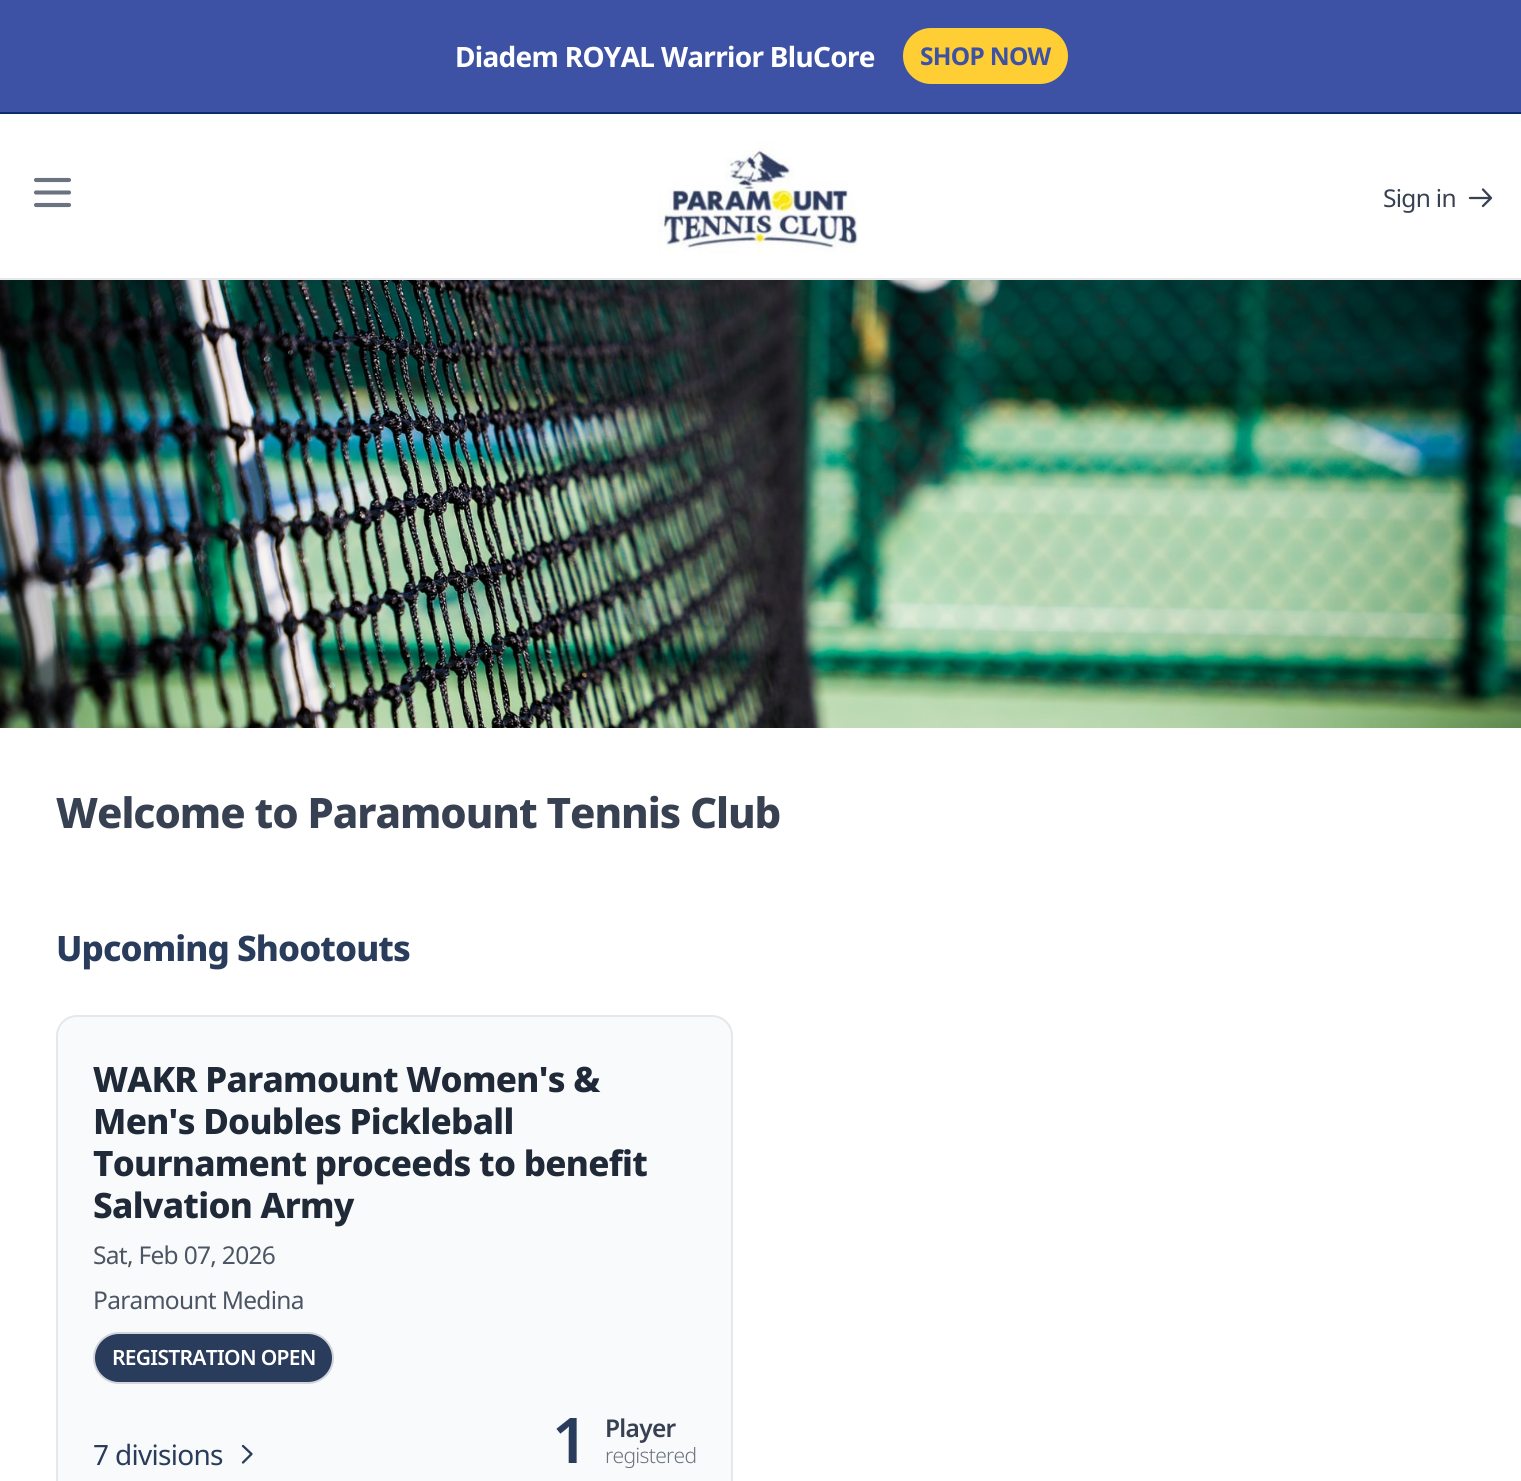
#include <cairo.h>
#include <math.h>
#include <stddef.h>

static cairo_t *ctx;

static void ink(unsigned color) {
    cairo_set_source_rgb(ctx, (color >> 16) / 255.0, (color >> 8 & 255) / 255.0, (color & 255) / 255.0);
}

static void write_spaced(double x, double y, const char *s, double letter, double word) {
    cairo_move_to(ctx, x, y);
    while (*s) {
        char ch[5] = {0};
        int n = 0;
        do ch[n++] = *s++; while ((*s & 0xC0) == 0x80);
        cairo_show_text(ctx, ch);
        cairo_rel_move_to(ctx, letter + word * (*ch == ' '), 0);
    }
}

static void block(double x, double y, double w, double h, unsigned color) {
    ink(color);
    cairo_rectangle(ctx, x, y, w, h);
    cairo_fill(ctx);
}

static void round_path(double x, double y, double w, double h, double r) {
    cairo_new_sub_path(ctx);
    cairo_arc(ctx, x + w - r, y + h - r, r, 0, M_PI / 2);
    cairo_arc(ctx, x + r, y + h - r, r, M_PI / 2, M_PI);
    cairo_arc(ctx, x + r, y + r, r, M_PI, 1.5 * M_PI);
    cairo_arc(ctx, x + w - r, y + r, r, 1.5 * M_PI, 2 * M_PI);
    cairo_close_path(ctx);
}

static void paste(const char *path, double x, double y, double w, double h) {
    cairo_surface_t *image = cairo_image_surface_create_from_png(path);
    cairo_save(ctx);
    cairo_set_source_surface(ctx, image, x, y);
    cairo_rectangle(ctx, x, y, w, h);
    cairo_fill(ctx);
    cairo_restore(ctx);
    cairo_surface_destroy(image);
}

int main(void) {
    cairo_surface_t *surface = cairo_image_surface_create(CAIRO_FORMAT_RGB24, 1521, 1481);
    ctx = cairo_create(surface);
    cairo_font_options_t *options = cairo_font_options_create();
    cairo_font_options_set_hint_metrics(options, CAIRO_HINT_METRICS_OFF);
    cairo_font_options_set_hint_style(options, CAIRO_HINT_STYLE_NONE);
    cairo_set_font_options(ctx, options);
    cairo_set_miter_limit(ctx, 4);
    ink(0xffffff);
    cairo_paint(ctx);
    block(0, 0, 1521, 112, 0x3d52a4);
    block(0, 112, 1521, 2, 0x0d2c6b);
    cairo_select_font_face(ctx, "Noto Sans", CAIRO_FONT_SLANT_NORMAL, CAIRO_FONT_WEIGHT_BOLD);
    cairo_set_font_size(ctx, 28);
    ink(0xffffff);
    write_spaced(455, 67, "Diadem ROYAL Warrior BluCore", -0.7, 0);
    ink(0xffcd34);
    round_path(903, 28, 165, 56, 28);
    cairo_fill(ctx);
    cairo_set_font_size(ctx, 24.5);
    ink(0x3d52a4);
    write_spaced(920, 65, "SHOP NOW", -0.7, 0);
    block(0, 278, 1521, 2, 0xe5e7eb);
    cairo_new_path(ctx);
    cairo_move_to(ctx, 36, 180);
    cairo_line_to(ctx, 69, 180);
    cairo_move_to(ctx, 36, 192.5);
    cairo_line_to(ctx, 69, 192.5);
    cairo_move_to(ctx, 36, 205);
    cairo_line_to(ctx, 69, 205);
    ink(0x6b7280);
    cairo_set_line_width(ctx, 4.1);
    cairo_set_line_cap(ctx, CAIRO_LINE_CAP_ROUND);
    cairo_set_line_join(ctx, CAIRO_LINE_JOIN_ROUND);
    cairo_stroke(ctx);
    paste("pic1.png", 658, 142, 200, 112);
    cairo_select_font_face(ctx, "Noto Sans", CAIRO_FONT_SLANT_NORMAL, CAIRO_FONT_WEIGHT_NORMAL);
    ink(0x374151);
    write_spaced(1383, 207, "Sign in", -0.7, 0);
    cairo_new_path(ctx);
    cairo_move_to(ctx, 1483, 189.5);
    cairo_line_to(ctx, 1491, 198);
    cairo_move_to(ctx, 1491, 198);
    cairo_line_to(ctx, 1483, 206);
    cairo_move_to(ctx, 1491, 198);
    cairo_line_to(ctx, 1470, 198);
    cairo_set_line_width(ctx, 2.3);
    cairo_stroke(ctx);
    paste("pic2.png", 0, 280, 1521, 448);
    cairo_select_font_face(ctx, "Noto Sans ExtraBold", CAIRO_FONT_SLANT_NORMAL, CAIRO_FONT_WEIGHT_NORMAL);
    cairo_set_font_size(ctx, 42);
    write_spaced(56, 828, "Welcome to Paramount Tennis Club", -1.05, 0);
    cairo_set_font_size(ctx, 35);
    ink(0x2a3c5b);
    write_spaced(56, 961, "Upcoming Shootouts", -0.9, 0);
    ink(0xf9fafb);
    round_path(57, 1016, 675, 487, 20);
    cairo_fill_preserve(ctx);
    ink(0xe5e7eb);
    cairo_set_line_width(ctx, 2);
    cairo_set_line_cap(ctx, CAIRO_LINE_CAP_BUTT);
    cairo_set_line_join(ctx, CAIRO_LINE_JOIN_MITER);
    cairo_stroke(ctx);
    ink(0x1f2937);
    write_spaced(93, 1092, "WAKR Paramount Women's &", -0.7, 0);
    write_spaced(93, 1134, "Men's Doubles Pickleball", -0.7, 0);
    write_spaced(93, 1176, "Tournament proceeds to benefit", -0.7, 0);
    write_spaced(93, 1218, "Salvation Army", -0.7, 0);
    cairo_select_font_face(ctx, "Noto Sans", CAIRO_FONT_SLANT_NORMAL, CAIRO_FONT_WEIGHT_NORMAL);
    cairo_set_font_size(ctx, 24.5);
    ink(0x4b5563);
    write_spaced(93, 1264, "Sat, Feb 07, 2026", -0.7, 0);
    write_spaced(93, 1309, "Paramount Medina", -0.7, 0);
    ink(0x2a3c5b);
    round_path(94, 1333, 239, 50, 25);
    cairo_fill_preserve(ctx);
    ink(0xd1d5db);
    cairo_stroke(ctx);
    cairo_select_font_face(ctx, "Noto Sans SemiBold", CAIRO_FONT_SLANT_NORMAL, CAIRO_FONT_WEIGHT_NORMAL);
    cairo_set_font_size(ctx, 21);
    ink(0xffffff);
    write_spaced(112, 1365, "REGISTRATION OPEN", -0.7, 0);
    cairo_select_font_face(ctx, "Noto Sans", CAIRO_FONT_SLANT_NORMAL, CAIRO_FONT_WEIGHT_NORMAL);
    cairo_set_font_size(ctx, 28);
    ink(0x2a3c5b);
    write_spaced(93, 1465, "7 divisions", -0.7, 0);
    cairo_new_path(ctx);
    cairo_move_to(ctx, 243, 1446);
    cairo_line_to(ctx, 251.5, 1454);
    cairo_line_to(ctx, 243, 1462.5);
    cairo_set_line_width(ctx, 2.3);
    cairo_set_line_cap(ctx, CAIRO_LINE_CAP_ROUND);
    cairo_set_line_join(ctx, CAIRO_LINE_JOIN_ROUND);
    cairo_stroke(ctx);
    cairo_select_font_face(ctx, "Noto Sans SemiBold", CAIRO_FONT_SLANT_NORMAL, CAIRO_FONT_WEIGHT_NORMAL);
    cairo_set_font_size(ctx, 63);
    write_spaced(552, 1463, "1", -0.7, 0);
    cairo_set_font_size(ctx, 24.5);
    ink(0x374151);
    write_spaced(605, 1437, "Player", -0.7, 0);
    cairo_select_font_face(ctx, "Noto Sans Light", CAIRO_FONT_SLANT_NORMAL, CAIRO_FONT_WEIGHT_NORMAL);
    cairo_set_font_size(ctx, 21);
    ink(0x6b7280);
    write_spaced(605, 1463, "registered", -0.7, 0);
    cairo_surface_write_to_png(surface, "screenshot.png");
    cairo_font_options_destroy(options);
    cairo_destroy(ctx);
    cairo_surface_destroy(surface);
    return 0;
}
